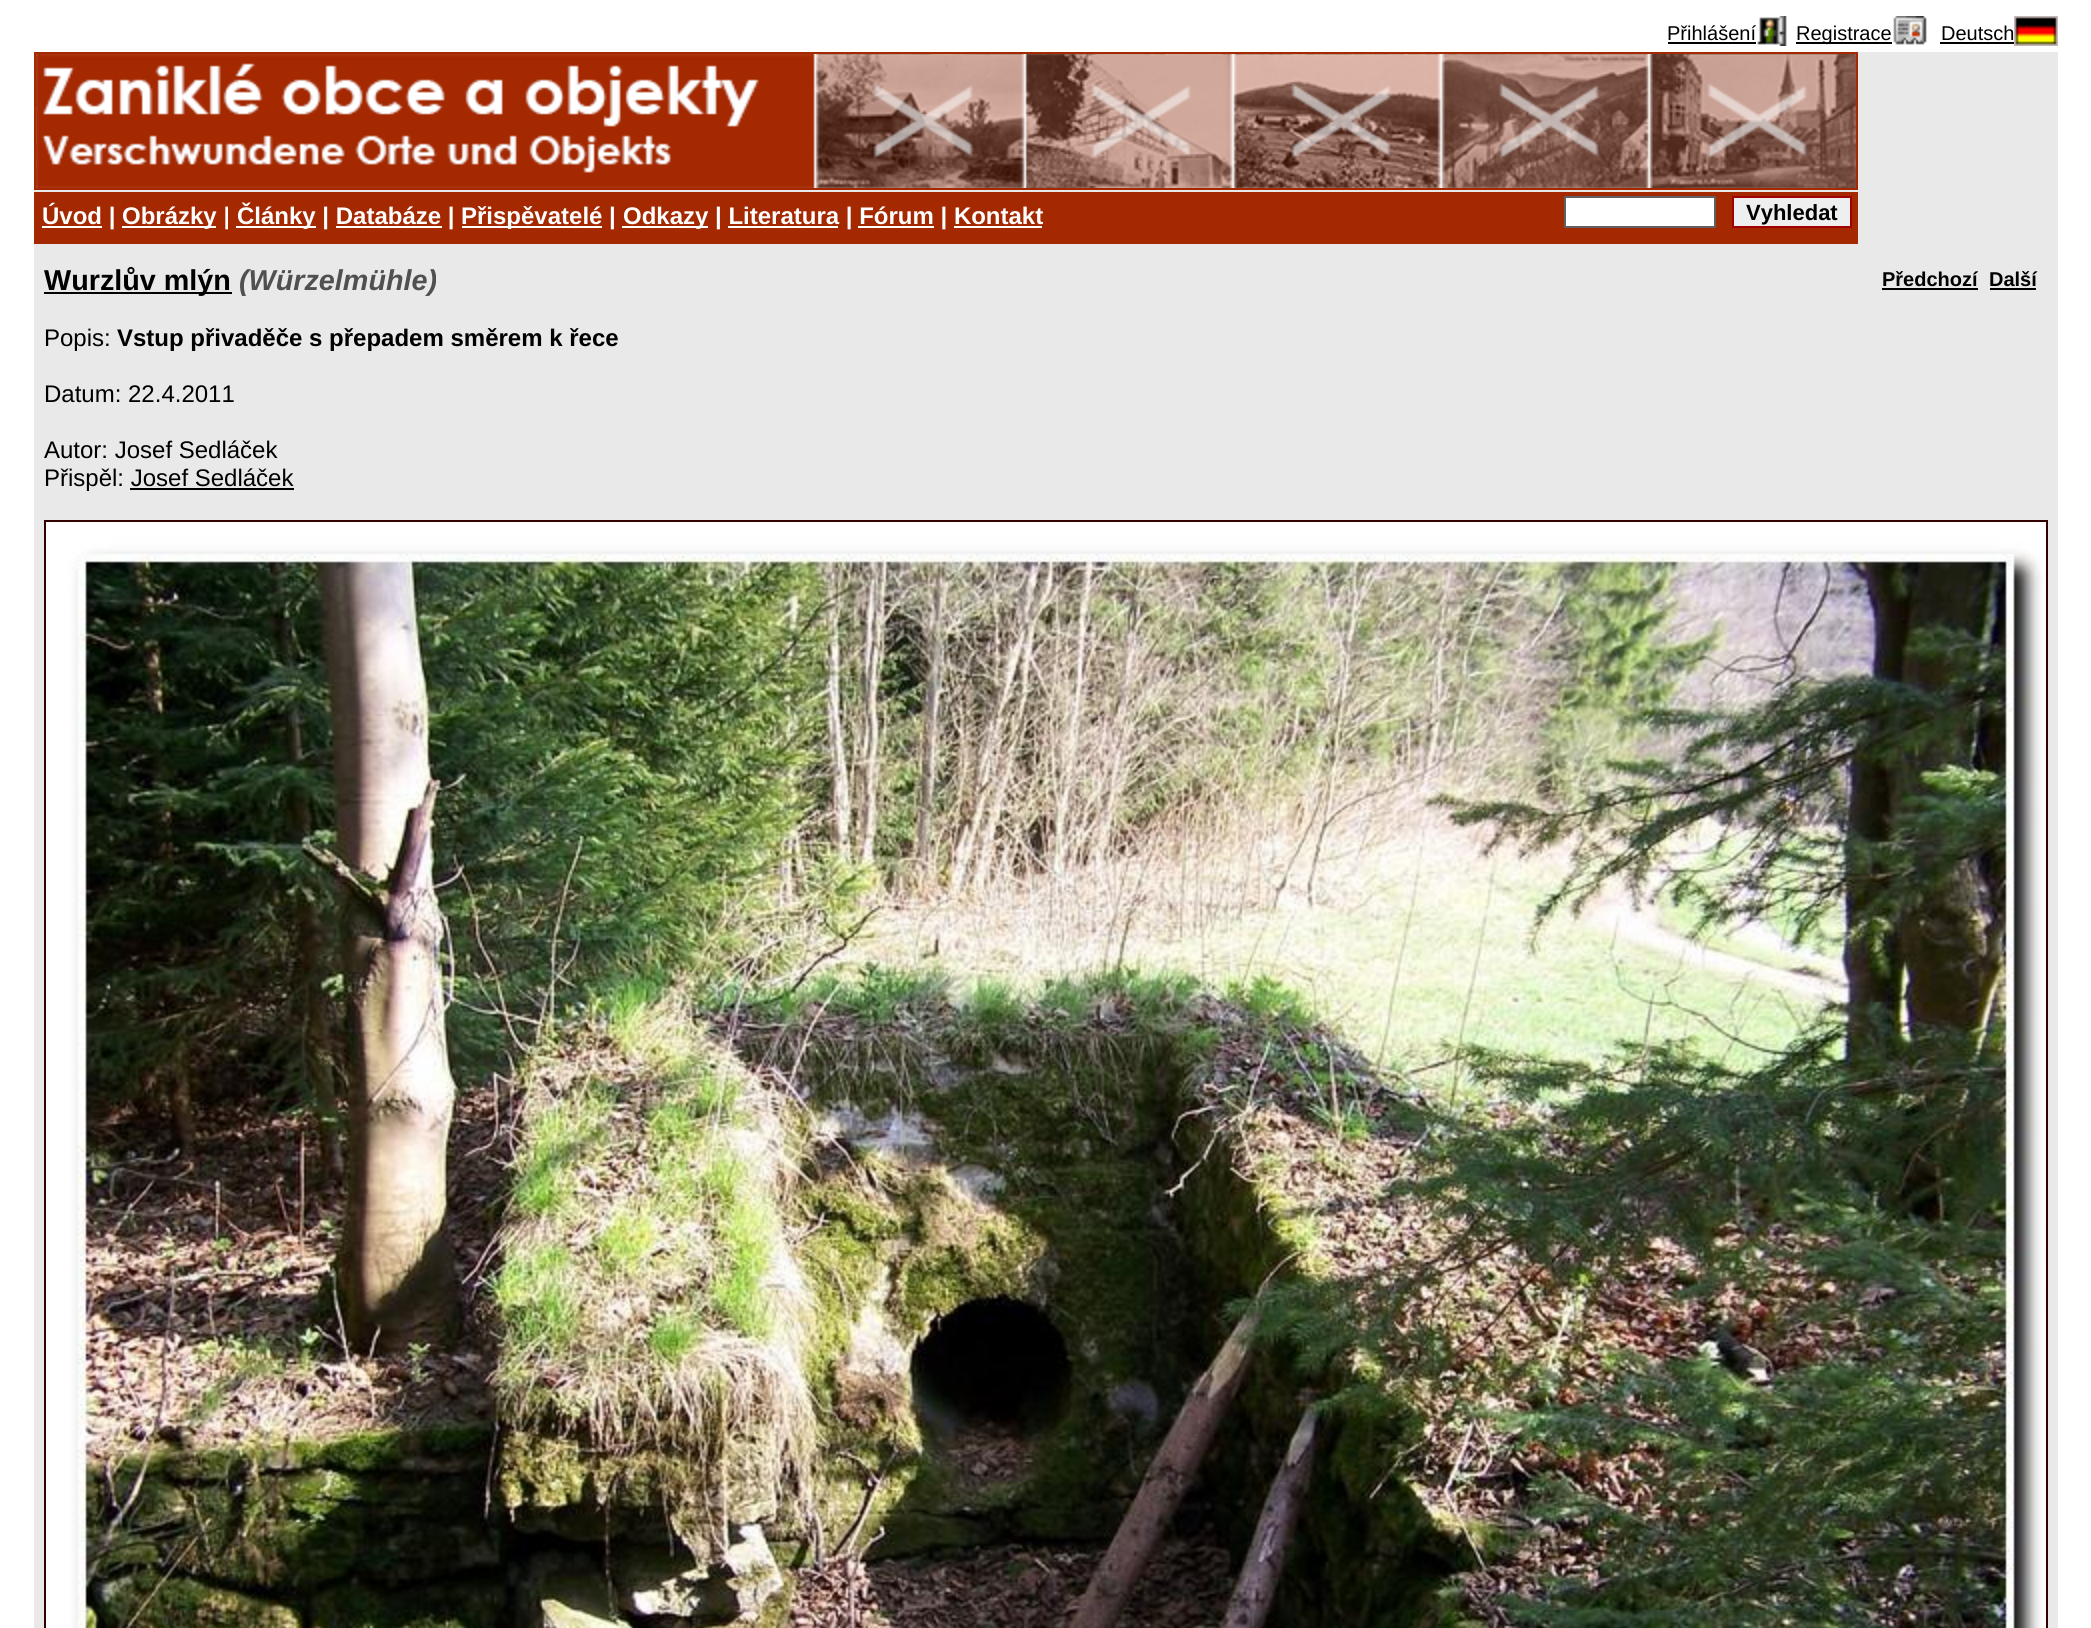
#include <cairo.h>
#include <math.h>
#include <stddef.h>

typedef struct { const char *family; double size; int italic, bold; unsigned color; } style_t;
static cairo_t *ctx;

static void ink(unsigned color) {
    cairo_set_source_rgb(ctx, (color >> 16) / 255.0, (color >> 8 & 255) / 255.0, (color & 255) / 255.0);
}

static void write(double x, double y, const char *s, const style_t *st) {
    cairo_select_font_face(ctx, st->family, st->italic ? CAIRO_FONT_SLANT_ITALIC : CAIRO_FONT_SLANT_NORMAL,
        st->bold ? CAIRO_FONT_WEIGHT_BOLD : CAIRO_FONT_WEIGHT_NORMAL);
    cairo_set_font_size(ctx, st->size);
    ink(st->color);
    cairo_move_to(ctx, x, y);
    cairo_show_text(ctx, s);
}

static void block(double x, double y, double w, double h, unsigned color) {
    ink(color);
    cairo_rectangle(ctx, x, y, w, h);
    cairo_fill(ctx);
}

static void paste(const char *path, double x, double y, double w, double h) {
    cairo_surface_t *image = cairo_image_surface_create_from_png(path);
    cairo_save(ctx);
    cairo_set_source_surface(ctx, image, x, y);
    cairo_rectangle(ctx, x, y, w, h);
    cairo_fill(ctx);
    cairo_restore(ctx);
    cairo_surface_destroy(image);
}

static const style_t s1 = {"Liberation Sans", 20, 0, 0, 0x000000};
static const style_t s2 = {"Liberation Sans", 24, 0, 1, 0xffffff};
static const style_t s3 = {"Liberation Sans", 22, 0, 1, 0x000000};
static const style_t s4 = {"Liberation Sans", 28.75, 0, 1, 0x000000};
static const style_t s5 = {"Liberation Sans", 28.75, 1, 1, 0x505050};
static const style_t s6 = {"Liberation Sans", 20, 0, 1, 0x000000};
static const style_t s7 = {"Liberation Sans", 24, 0, 0, 0x000000};
static const style_t s8 = {"Liberation Sans", 24, 0, 1, 0x000000};

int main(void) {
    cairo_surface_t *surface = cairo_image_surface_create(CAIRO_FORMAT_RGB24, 2091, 1628);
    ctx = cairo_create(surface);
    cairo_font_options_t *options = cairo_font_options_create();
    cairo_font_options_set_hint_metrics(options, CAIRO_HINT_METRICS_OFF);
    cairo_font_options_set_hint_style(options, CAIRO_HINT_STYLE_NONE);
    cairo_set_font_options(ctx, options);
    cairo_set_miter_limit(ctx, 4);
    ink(0xffffff);
    cairo_paint(ctx);
    block(34, 52, 2024, 1576, 0xe9e9e9);
    write(1667, 40, "Přihlášení", &s1);
    block(1668, 42, 88, 2, 0x000000);
    paste("pic1.png", 1757, 16, 30, 30);
    block(1796, 42, 96, 2, 0x000000);
    write(1796, 40, "Registrace", &s1);
    paste("pic2.png", 1893, 16, 34, 29);
    write(1941, 40, "Deutsch", &s1);
    block(1940, 42, 74, 2, 0x000000);
    paste("pic3.png", 2014, 16, 44, 30);
    paste("pic4.png", 36, 54, 1820, 134);
    cairo_rectangle(ctx, 35, 53, 1822, 136);
    ink(0xa42900);
    cairo_stroke(ctx);
    block(34, 192, 1824, 52, 0xa42900);
    block(42, 226, 60, 2, 0xffffff);
    write(42, 224, "Úvod |", &s2);
    block(122, 226, 94, 2, 0xffffff);
    write(122, 224, "Obrázky |", &s2);
    block(236, 226, 80, 2, 0xffffff);
    write(237, 224, "Články | Databáze |", &s2);
    block(462, 226, 140, 2, 0xffffff);
    write(461, 224, "Přispěvatelé |", &s2);
    block(622, 226, 86, 2, 0xffffff);
    write(623, 224, "Odkazy | Literatura | Fórum | Kontakt", &s2);
    block(336, 226, 106, 2, 0xffffff);
    block(728, 226, 110, 2, 0xffffff);
    block(858, 226, 76, 2, 0xffffff);
    block(954, 226, 88, 2, 0xffffff);
    cairo_rectangle(ctx, 1565, 197, 150, 30);
    cairo_fill_preserve(ctx);
    ink(0x606060);
    cairo_stroke(ctx);
    ink(0xefefef);
    cairo_rectangle(ctx, 1733, 197, 118, 30);
    cairo_fill_preserve(ctx);
    ink(0xa00000);
    cairo_stroke(ctx);
    write(1746, 220, "Vyhledat", &s3);
    block(44, 292, 188, 2, 0x000000);
    write(44, 290, "Wurzlův mlýn", &s4);
    write(239, 290, "(Würzelmühle)", &s5);
    write(1882, 286, "Předchozí", &s6);
    block(1882, 288, 96, 2, 0x000000);
    write(1989, 286, "Další", &s6);
    block(1990, 288, 46, 2, 0x000000);
    write(44, 346, "Popis:", &s7);
    write(117, 346, "Vstup přivaděče s přepadem směrem k řece", &s8);
    write(44, 402, "Datum: 22.4.2011", &s7);
    write(44, 458, "Autor: Josef Sedláček", &s7);
    write(44, 486, "Přispěl: Josef Sedláček", &s7);
    block(130, 488, 164, 2, 0x000000);
    cairo_rectangle(ctx, 45, 521, 2002, 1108);
    ink(0x330000);
    cairo_stroke(ctx);
    paste("pic5.png", 46, 522, 2000, 1106);
    cairo_surface_write_to_png(surface, "screenshot.png");
    cairo_font_options_destroy(options);
    cairo_destroy(ctx);
    cairo_surface_destroy(surface);
    return 0;
}
